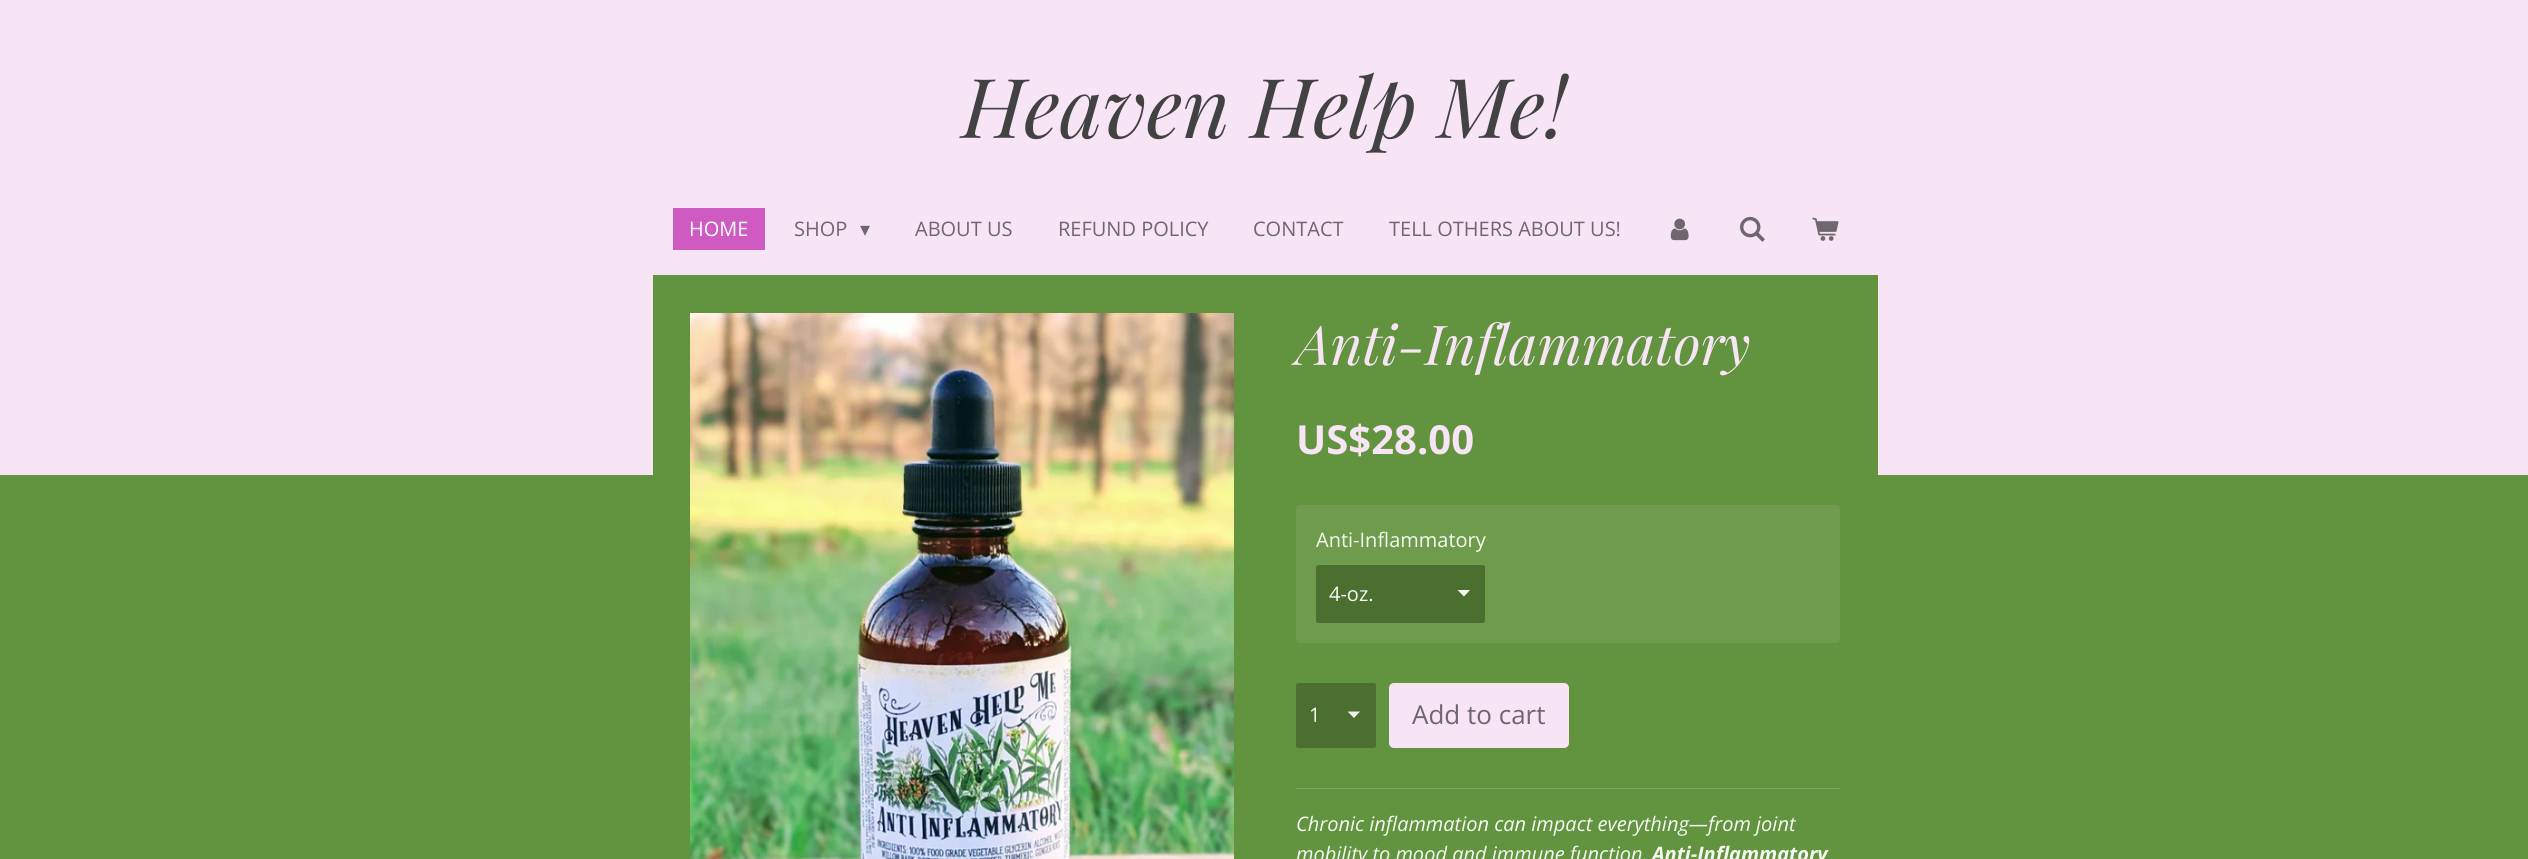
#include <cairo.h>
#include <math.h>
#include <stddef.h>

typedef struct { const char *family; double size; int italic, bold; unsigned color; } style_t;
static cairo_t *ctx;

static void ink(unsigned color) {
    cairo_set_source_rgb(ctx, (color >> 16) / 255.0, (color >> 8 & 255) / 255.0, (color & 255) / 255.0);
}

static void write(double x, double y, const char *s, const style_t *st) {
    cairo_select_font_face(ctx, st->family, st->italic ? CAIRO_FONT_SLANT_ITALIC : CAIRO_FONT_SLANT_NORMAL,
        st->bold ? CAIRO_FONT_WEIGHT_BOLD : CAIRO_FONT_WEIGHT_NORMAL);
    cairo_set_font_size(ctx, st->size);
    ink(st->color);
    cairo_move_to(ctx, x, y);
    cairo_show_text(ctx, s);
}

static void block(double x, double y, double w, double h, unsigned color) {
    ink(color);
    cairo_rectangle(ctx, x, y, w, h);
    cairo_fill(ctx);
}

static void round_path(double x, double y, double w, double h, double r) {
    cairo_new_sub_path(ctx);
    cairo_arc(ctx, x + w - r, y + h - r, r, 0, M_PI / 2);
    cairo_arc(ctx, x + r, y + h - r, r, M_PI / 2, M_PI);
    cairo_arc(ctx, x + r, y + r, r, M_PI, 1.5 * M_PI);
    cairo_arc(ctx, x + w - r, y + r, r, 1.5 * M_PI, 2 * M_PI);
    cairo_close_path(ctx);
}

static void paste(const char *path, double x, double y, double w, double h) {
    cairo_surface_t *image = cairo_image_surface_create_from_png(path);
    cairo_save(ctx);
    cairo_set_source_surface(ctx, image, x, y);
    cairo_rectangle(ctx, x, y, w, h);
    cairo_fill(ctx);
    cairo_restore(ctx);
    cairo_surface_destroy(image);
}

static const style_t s1 = {"Playfair Display", 82.5, 1, 0, 0x424242};
static const style_t s2 = {"Open Sans", 20, 0, 0, 0xffffff};
static const style_t s3 = {"Open Sans", 20, 0, 0, 0x6f676e};
static const style_t s4 = {"DejaVu Sans", 20, 0, 0, 0x6f676e};
static const style_t s5 = {"Playfair Display", 55, 1, 0, 0xf7e4f5};
static const style_t s6 = {"Open Sans", 40, 0, 1, 0xf7e4f5};
static const style_t s7 = {"Open Sans", 20, 0, 0, 0xf4f9f1};
static const style_t s8 = {"Open Sans", 26, 0, 0, 0x6f676e};
static const style_t s9 = {"Open Sans", 20, 1, 0, 0xf4f9f1};
static const style_t s10 = {"Open Sans", 20, 1, 1, 0xf4f9f1};

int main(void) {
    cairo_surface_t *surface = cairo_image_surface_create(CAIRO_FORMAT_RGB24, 2528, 859);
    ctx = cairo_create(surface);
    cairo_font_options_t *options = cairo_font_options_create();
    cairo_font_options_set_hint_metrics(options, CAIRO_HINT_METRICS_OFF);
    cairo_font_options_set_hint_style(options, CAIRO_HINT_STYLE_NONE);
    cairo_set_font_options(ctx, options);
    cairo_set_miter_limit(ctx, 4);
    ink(0x62933e);
    cairo_paint(ctx);
    block(0, 0, 2528, 475, 0xf7e4f5);
    write(962, 138, "Heaven Help Me!", &s1);
    block(673, 208, 92, 42, 0xce5ac2);
    write(689, 236, "HOME", &s2);
    write(794, 236, "SHOP", &s3);
    write(860, 236, "▾", &s4);
    write(915, 236, "ABOUT US", &s3);
    write(1058, 236, "REFUND POLICY", &s3);
    write(1253, 236, "CONTACT", &s3);
    write(1389, 236, "TELL OTHERS ABOUT US!", &s3);
    paste("pic1.png", 1670, 218, 19, 23);
    paste("pic2.png", 1740, 216, 25, 26);
    paste("pic3.png", 1812, 217, 27, 24);
    block(653, 275, 1225, 200, 0x62933e);
    paste("pic4.png", 690, 313, 544, 546);
    write(1296, 365, "Anti-Inflammatory", &s5);
    write(1296, 454, "US$28.00", &s6);
    ink(0x6e9b4c);
    round_path(1296, 505, 544, 138, 4);
    cairo_fill(ctx);
    write(1316, 547, "Anti-Inflammatory", &s7);
    ink(0x4a6f2f);
    round_path(1316, 565, 169, 58, 2.5);
    cairo_fill(ctx);
    ink(0xf4f9f1);
    cairo_new_path(ctx);
    cairo_move_to(ctx, 1464, 596.5);
    cairo_line_to(ctx, 1457.5, 590);
    cairo_line_to(ctx, 1470, 590);
    cairo_close_path(ctx);
    cairo_fill(ctx);
    write(1329, 601, "4-oz.", &s7);
    ink(0x4a6f2f);
    round_path(1296, 683, 80, 65, 2.5);
    cairo_fill(ctx);
    ink(0xf4f9f1);
    cairo_new_path(ctx);
    cairo_move_to(ctx, 1354, 718);
    cairo_line_to(ctx, 1347.5, 711.5);
    cairo_line_to(ctx, 1360, 711.5);
    cairo_close_path(ctx);
    cairo_fill(ctx);
    write(1309, 722, "1", &s7);
    ink(0xf7e4f5);
    round_path(1389, 683, 180, 65, 5);
    cairo_fill(ctx);
    write(1412, 724, "Add to cart", &s8);
    block(1296, 788, 544, 1, 0x7fa762);
    write(1296, 831, "Chronic inflammation can impact everything—from joint", &s9);
    write(1296, 861, "mobility to mood and immune function.", &s9);
    write(1652, 861, "Anti-Inflammatory", &s10);
    cairo_surface_write_to_png(surface, "screenshot.png");
    cairo_font_options_destroy(options);
    cairo_destroy(ctx);
    cairo_surface_destroy(surface);
    return 0;
}
